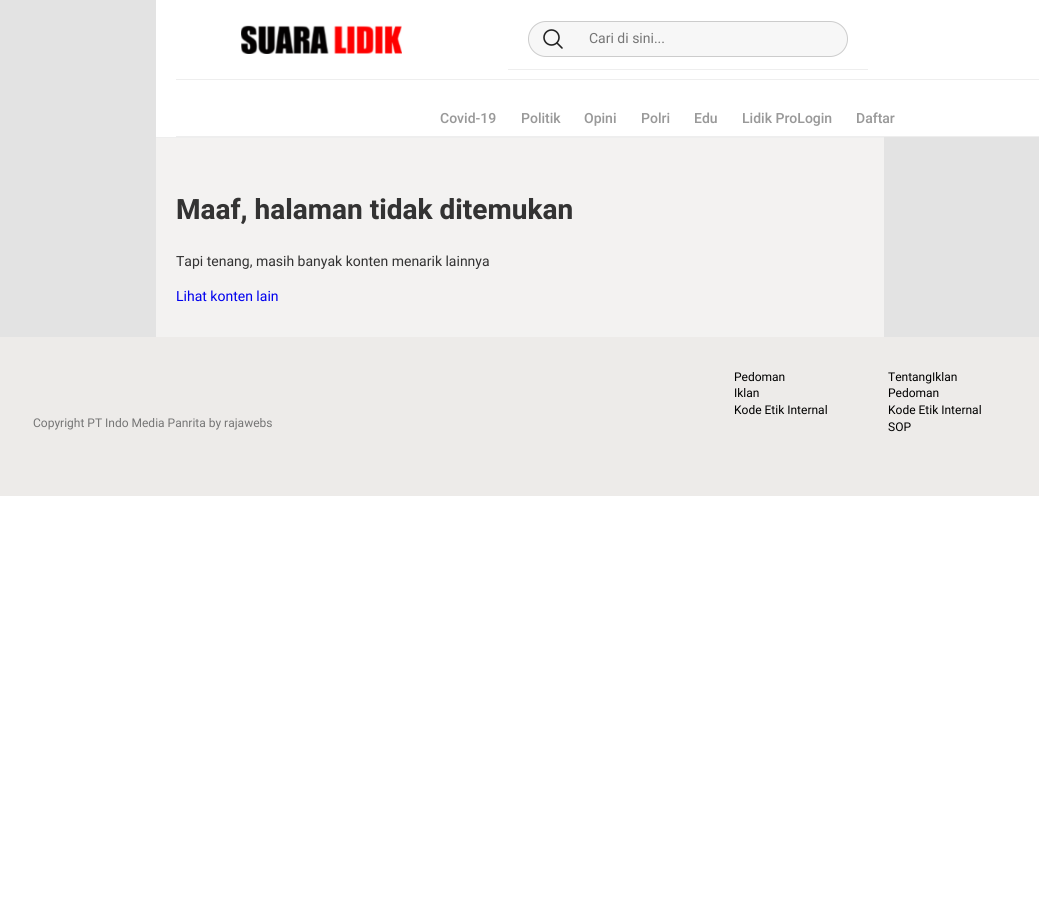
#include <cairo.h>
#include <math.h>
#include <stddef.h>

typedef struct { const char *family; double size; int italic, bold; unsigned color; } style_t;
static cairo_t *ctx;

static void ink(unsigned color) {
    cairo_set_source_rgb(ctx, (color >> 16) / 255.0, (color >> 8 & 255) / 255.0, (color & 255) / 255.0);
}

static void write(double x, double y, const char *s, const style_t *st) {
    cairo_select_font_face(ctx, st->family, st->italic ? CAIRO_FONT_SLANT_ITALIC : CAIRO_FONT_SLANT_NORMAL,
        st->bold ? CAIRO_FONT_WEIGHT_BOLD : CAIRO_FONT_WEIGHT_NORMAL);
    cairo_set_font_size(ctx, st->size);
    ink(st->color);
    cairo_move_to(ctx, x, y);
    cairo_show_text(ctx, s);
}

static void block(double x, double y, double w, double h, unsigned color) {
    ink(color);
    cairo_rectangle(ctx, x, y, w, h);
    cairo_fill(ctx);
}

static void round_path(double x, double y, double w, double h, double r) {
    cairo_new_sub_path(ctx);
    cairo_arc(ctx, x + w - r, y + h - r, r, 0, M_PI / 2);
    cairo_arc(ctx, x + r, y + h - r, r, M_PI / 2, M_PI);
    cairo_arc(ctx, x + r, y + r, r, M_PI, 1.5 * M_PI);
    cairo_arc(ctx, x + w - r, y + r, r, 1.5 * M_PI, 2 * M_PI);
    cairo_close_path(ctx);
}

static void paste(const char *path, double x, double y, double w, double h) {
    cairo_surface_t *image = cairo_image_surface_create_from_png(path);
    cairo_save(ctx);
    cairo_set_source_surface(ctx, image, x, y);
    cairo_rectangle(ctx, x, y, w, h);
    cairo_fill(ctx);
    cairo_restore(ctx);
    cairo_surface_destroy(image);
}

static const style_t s1 = {"Heebo", 14, 0, 0, 0x767676};
static const style_t s2 = {"Heebo Medium", 14, 0, 0, 0x999999};
static const style_t s3 = {"Heebo", 28, 0, 1, 0x333333};
static const style_t s4 = {"Heebo", 14, 0, 0, 0x333333};
static const style_t s5 = {"Heebo", 14, 0, 0, 0x0000ee};
static const style_t s6 = {"Heebo", 12, 0, 0, 0x767676};
static const style_t s7 = {"Heebo", 12, 0, 0, 0x000000};

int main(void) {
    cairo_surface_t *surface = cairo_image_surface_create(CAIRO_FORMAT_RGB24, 1039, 912);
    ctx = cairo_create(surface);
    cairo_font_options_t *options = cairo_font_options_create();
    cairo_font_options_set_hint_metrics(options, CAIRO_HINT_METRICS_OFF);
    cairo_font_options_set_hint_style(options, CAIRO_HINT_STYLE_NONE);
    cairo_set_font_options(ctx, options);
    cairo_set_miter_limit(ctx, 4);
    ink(0xffffff);
    cairo_paint(ctx);
    block(0, 0, 1039, 337, 0xe3e3e3);
    block(156, 137, 728, 1, 0xeeeeee);
    block(156, 0, 20, 137, 0xffffff);
    block(176, 0, 863, 79, 0xffffff);
    block(176, 79, 863, 1, 0xeeeeee);
    paste("pic1.png", 241, 25, 161, 29);
    block(508, 69, 360, 1, 0xeeeeee);
    ink(0xf7f7f7);
    round_path(528.5, 21.5, 319, 35, 17.5);
    cairo_fill_preserve(ctx);
    ink(0xcccccc);
    cairo_set_line_width(ctx, 1);
    cairo_stroke(ctx);
    cairo_arc(ctx, 551.5, 37.5, 7.5, 0, 2 * M_PI);
    ink(0x222222);
    cairo_set_line_width(ctx, 1.6);
    cairo_stroke(ctx);
    cairo_new_path(ctx);
    cairo_move_to(ctx, 562, 48);
    cairo_line_to(ctx, 557, 43);
    cairo_set_line_cap(ctx, CAIRO_LINE_CAP_ROUND);
    cairo_set_line_join(ctx, CAIRO_LINE_JOIN_ROUND);
    cairo_stroke(ctx);
    write(589, 43, "Cari di sini...", &s1);
    block(176, 136, 863, 1, 0xeeeeee);
    block(176, 80, 863, 56, 0xffffff);
    write(440, 123, "Covid-19", &s2);
    write(521, 123, "Politik", &s2);
    write(584, 123, "Opini", &s2);
    write(641, 123, "Polri", &s2);
    write(694, 123, "Edu", &s2);
    write(742, 123, "Lidik ProLogin", &s2);
    write(856, 123, "Daftar", &s2);
    block(156, 138, 728, 199, 0xf3f2f1);
    write(176, 219, "Maaf, halaman tidak ditemukan", &s3);
    write(176, 266, "Tapi tenang, masih banyak konten menarik lainnya", &s4);
    write(176, 301, "Lihat konten lain", &s5);
    block(0, 337, 1039, 159, 0xedebe9);
    write(33, 427, "Copyright PT Indo Media Panrita by rajawebs", &s6);
    write(734, 381, "Pedoman", &s7);
    write(734, 397, "Iklan", &s7);
    write(734, 414, "Kode Etik Internal", &s7);
    write(888, 381, "TentangIklan", &s7);
    write(888, 397, "Pedoman", &s7);
    write(888, 414, "Kode Etik Internal", &s7);
    write(888, 431, "SOP", &s7);
    cairo_surface_write_to_png(surface, "screenshot.png");
    cairo_font_options_destroy(options);
    cairo_destroy(ctx);
    cairo_surface_destroy(surface);
    return 0;
}
